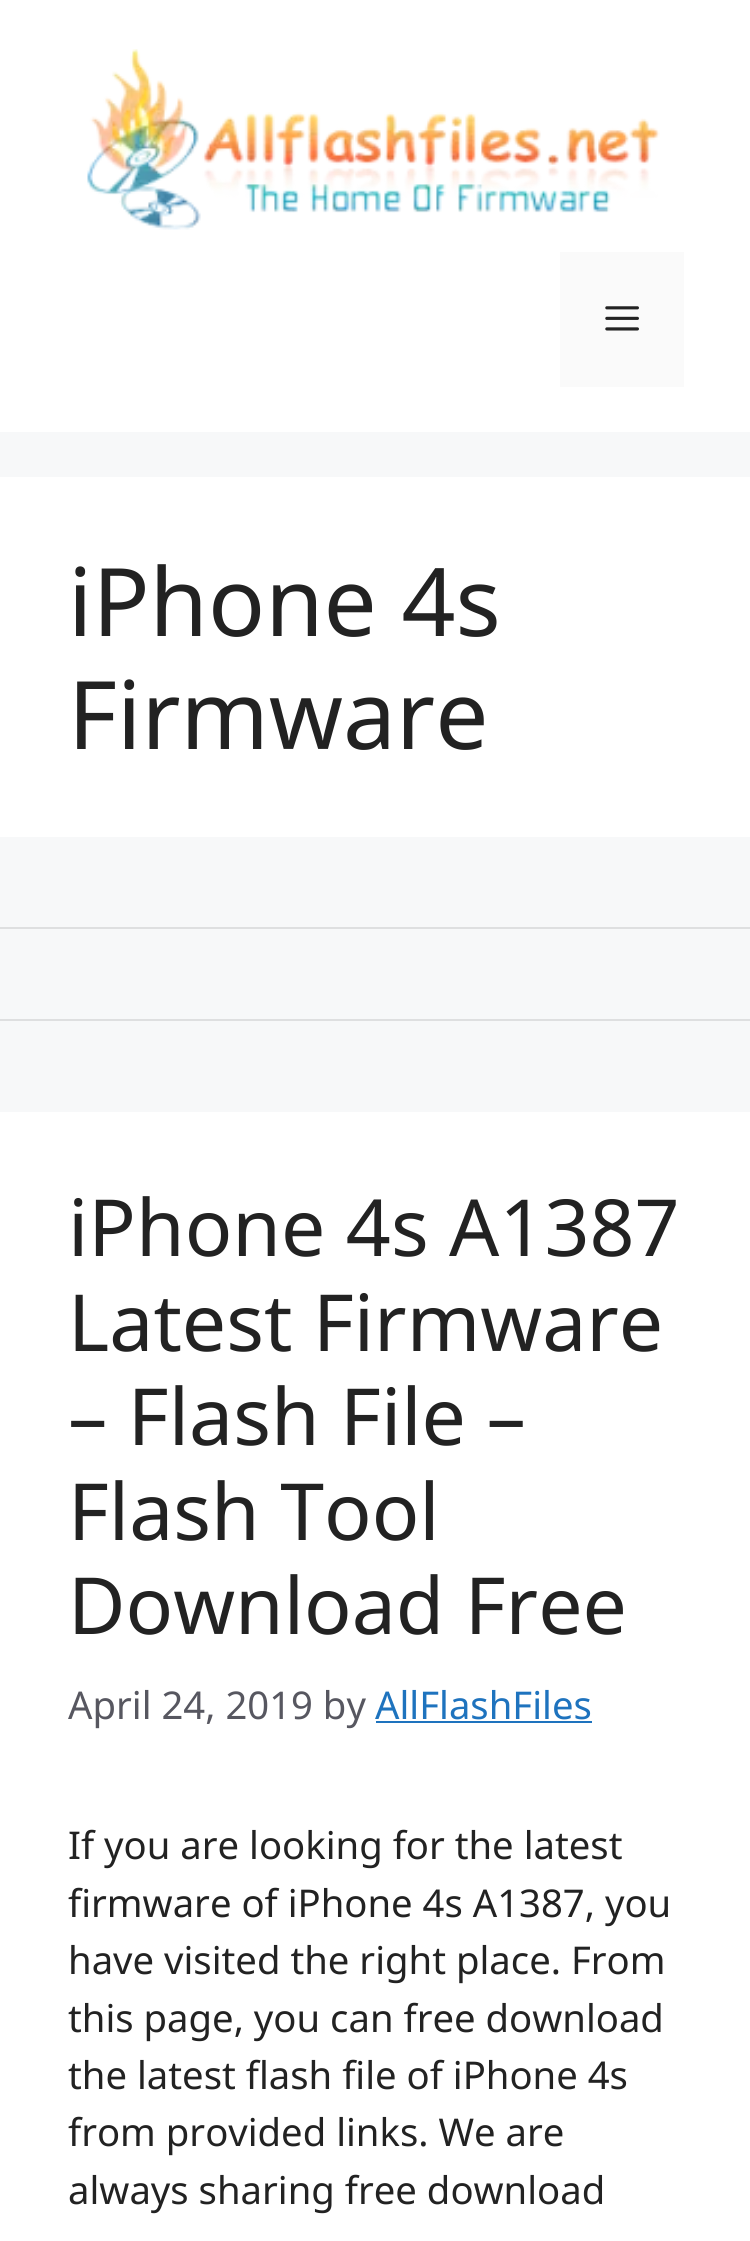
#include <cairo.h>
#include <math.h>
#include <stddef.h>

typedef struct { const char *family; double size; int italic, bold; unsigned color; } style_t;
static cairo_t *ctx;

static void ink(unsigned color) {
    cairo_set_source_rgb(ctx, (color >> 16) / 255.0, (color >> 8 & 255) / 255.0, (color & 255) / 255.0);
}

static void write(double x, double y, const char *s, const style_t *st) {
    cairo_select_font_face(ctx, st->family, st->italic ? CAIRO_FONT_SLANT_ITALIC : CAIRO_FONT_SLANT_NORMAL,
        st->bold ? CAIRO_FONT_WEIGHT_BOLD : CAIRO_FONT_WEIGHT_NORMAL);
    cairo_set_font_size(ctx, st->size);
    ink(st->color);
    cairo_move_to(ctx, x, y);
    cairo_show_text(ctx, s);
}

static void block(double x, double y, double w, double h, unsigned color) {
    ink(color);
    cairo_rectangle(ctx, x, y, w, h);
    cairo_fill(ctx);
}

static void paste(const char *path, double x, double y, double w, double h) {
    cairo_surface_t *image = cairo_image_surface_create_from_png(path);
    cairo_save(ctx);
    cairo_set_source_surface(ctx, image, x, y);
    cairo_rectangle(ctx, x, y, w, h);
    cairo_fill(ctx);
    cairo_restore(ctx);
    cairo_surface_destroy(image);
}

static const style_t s1 = {"Noto Sans", 94.5, 0, 0, 0x222222};
static const style_t s2 = {"Noto Sans", 78.75, 0, 0, 0x222222};
static const style_t s3 = {"Noto Sans", 38.25, 0, 0, 0x575760};
static const style_t s4 = {"Noto Sans", 38.25, 0, 0, 0x1e73be};
static const style_t s5 = {"Noto Sans", 38.25, 0, 0, 0x222222};

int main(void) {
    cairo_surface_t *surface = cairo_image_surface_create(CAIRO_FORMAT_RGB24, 750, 2241);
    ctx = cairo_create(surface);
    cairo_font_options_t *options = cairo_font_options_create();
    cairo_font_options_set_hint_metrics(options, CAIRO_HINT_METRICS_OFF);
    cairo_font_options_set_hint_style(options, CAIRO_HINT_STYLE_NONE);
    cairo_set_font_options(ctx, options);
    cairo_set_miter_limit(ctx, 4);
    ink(0xf7f8f9);
    cairo_paint(ctx);
    block(0, 0, 750, 432, 0xffffff);
    paste("pic1.png", 87, 49, 573, 181);
    block(560, 252, 124, 135, 0xfafafa);
    paste("pic2.png", 605, 306, 34, 25);
    block(0, 477, 750, 360, 0xffffff);
    write(68, 636, "iPhone 4s", &s1);
    write(68, 749, "Firmware", &s1);
    block(0, 927, 750, 2, 0xdedfe0);
    block(0, 1019, 750, 2, 0xdedfe0);
    block(0, 1112, 750, 1129, 0xffffff);
    write(68, 1256, "iPhone 4s A1387", &s2);
    write(68, 1351, "Latest Firmware", &s2);
    write(68, 1445, "– Flash File –", &s2);
    write(68, 1540, "Flash Tool", &s2);
    write(68, 1634, "Download Free", &s2);
    write(68, 1719, "April 24, 2019 by", &s3);
    write(375, 1719, "AllFlashFiles", &s4);
    block(376, 1721, 216, 2, 0x1e73be);
    write(68, 1859, "If you are looking for the latest", &s5);
    write(68, 1917, "firmware of iPhone 4s A1387, you", &s5);
    write(68, 1974, "have visited the right place. From", &s5);
    write(68, 2032, "this page, you can free download", &s5);
    write(68, 2089, "the latest flash file of iPhone 4s", &s5);
    write(68, 2146, "from provided links. We are", &s5);
    write(68, 2204, "always sharing free download", &s5);
    cairo_surface_write_to_png(surface, "screenshot.png");
    cairo_font_options_destroy(options);
    cairo_destroy(ctx);
    cairo_surface_destroy(surface);
    return 0;
}
